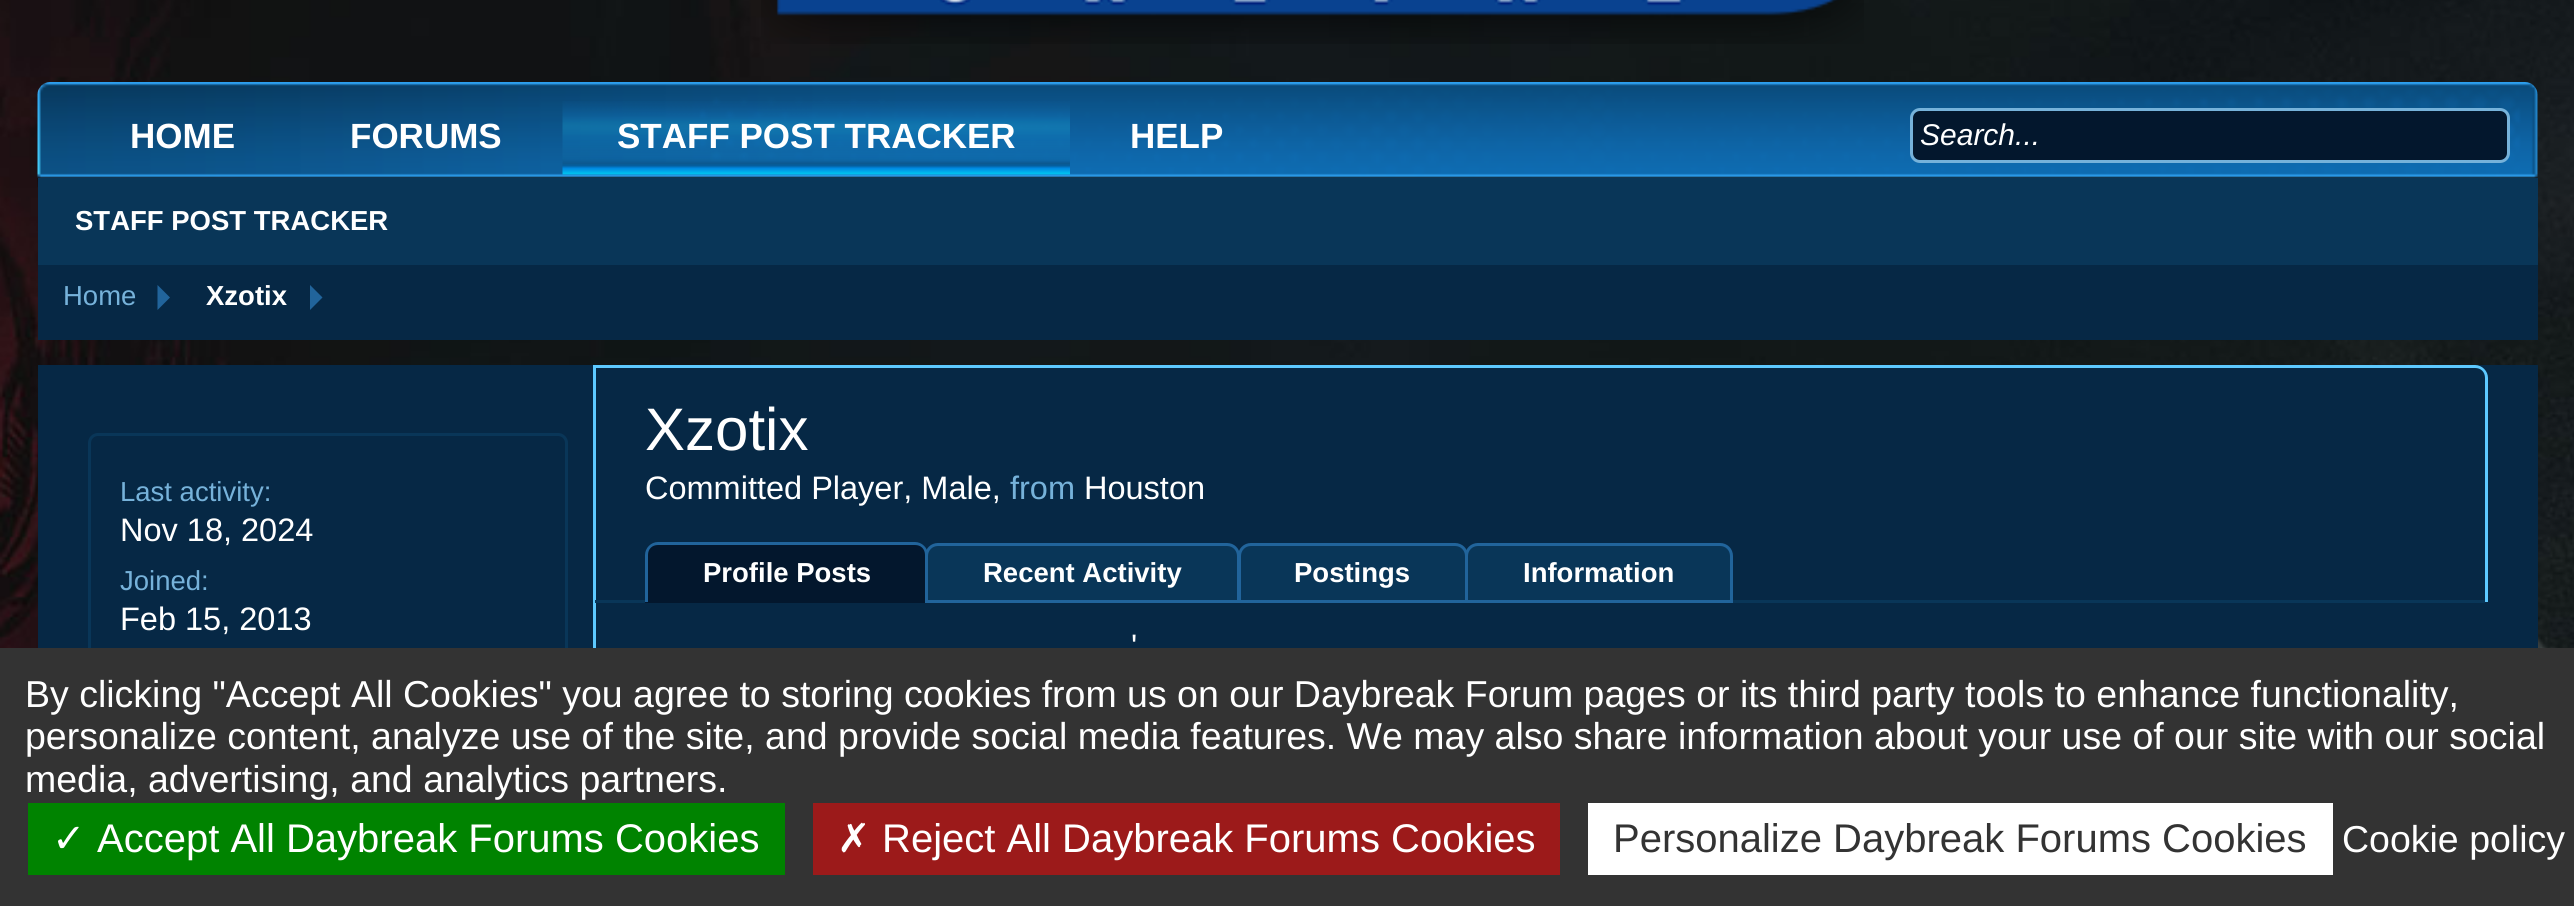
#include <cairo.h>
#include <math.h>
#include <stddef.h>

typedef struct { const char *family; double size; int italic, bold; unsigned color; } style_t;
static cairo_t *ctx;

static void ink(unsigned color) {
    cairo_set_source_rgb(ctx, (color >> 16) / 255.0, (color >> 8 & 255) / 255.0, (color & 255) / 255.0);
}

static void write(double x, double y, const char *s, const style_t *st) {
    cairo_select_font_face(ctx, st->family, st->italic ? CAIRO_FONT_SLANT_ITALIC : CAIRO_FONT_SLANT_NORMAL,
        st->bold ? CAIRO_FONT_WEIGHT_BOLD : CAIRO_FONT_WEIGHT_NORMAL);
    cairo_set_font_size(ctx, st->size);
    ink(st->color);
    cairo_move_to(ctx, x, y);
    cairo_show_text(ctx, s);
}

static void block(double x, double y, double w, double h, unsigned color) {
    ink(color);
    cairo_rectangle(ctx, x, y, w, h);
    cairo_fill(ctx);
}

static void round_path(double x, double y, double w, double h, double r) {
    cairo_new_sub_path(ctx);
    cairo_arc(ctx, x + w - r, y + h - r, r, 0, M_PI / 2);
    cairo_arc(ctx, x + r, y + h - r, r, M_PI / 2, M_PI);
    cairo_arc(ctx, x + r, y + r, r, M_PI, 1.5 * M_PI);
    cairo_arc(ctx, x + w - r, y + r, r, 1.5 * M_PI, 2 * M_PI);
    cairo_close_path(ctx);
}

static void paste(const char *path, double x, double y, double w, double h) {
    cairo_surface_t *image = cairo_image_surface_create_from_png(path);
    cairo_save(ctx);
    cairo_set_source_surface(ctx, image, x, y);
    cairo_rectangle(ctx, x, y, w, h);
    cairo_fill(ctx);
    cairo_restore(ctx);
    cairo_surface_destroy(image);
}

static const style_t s1 = {"Liberation Sans", 35, 0, 1, 0xffffff};
static const style_t s2 = {"Liberation Sans", 27.5, 0, 1, 0xffffff};
static const style_t s3 = {"Liberation Sans", 30, 1, 0, 0xffffff};
static const style_t s4 = {"Liberation Sans", 27.5, 0, 0, 0x76b2da};
static const style_t s5 = {"Liberation Sans", 32.5, 0, 0, 0xffffff};
static const style_t s6 = {"Liberation Sans", 60, 0, 0, 0xffffff};
static const style_t s7 = {"Liberation Sans", 32.5, 0, 0, 0x76b2da};
static const style_t s8 = {"Liberation Sans", 37.5, 0, 0, 0xffffff};
static const style_t s9 = {"DejaVu Sans", 40, 0, 0, 0xffffff};
static const style_t s10 = {"Liberation Sans", 40, 0, 0, 0xffffff};
static const style_t s11 = {"Liberation Sans", 40, 0, 0, 0x333333};

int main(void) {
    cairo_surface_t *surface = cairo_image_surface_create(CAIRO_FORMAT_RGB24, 2574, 906);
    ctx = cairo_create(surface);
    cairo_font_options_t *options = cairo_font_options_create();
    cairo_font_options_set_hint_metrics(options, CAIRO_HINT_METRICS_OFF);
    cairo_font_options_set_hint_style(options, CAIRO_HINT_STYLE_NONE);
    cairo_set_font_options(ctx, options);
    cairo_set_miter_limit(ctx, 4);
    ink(0xffffff);
    cairo_paint(ctx);
    paste("pic1.png", 0, 0, 2574, 648);
    paste("pic2.png", 761, 0, 1103, 44);
    paste("pic3.png", 37, 82, 2501, 105);
    paste("pic4.png", 562, 101, 508, 74);
    write(617, 148, "STAFF POST TRACKER", &s1);
    block(38, 178, 2500, 87, 0x093658);
    write(75, 230, "STAFF POST TRACKER", &s2);
    write(130, 148, "HOME", &s1);
    write(350, 148, "FORUMS", &s1);
    write(1130, 148, "HELP", &s1);
    ink(0x03172d);
    round_path(1911.5, 109.5, 597, 52, 8.5);
    cairo_fill_preserve(ctx);
    ink(0x76b2da);
    cairo_set_line_width(ctx, 3);
    cairo_stroke(ctx);
    write(1920, 145, "Search...", &s3);
    block(38, 265, 2500, 75, 0x062845);
    write(63, 305, "Home", &s4);
    ink(0x21649b);
    cairo_new_path(ctx);
    cairo_move_to(ctx, 157.5, 310);
    cairo_line_to(ctx, 157.5, 285);
    cairo_line_to(ctx, 170, 297.5);
    cairo_close_path(ctx);
    cairo_fill(ctx);
    write(206, 305, "Xzotix", &s2);
    ink(0x21649b);
    cairo_new_path(ctx);
    cairo_move_to(ctx, 310, 310);
    cairo_line_to(ctx, 310, 285);
    cairo_line_to(ctx, 322.5, 297.5);
    cairo_close_path(ctx);
    cairo_fill(ctx);
    block(38, 365, 2500, 283, 0x062845);
    ink(0x5dc9ff);
    cairo_set_fill_rule(ctx, CAIRO_FILL_RULE_EVEN_ODD);
    cairo_new_path(ctx);
    cairo_move_to(ctx, 595, 365);
    cairo_line_to(ctx, 2475, 365);
    cairo_curve_to(ctx, 2482, 365, 2488, 371, 2488, 378);
    cairo_line_to(ctx, 2488, 602);
    cairo_line_to(ctx, 595, 602);
    cairo_close_path(ctx);
    cairo_move_to(ctx, 595, 368);
    cairo_line_to(ctx, 2475, 368);
    cairo_curve_to(ctx, 2481, 368, 2485, 372, 2485, 378);
    cairo_line_to(ctx, 2485, 602);
    cairo_line_to(ctx, 595, 602);
    cairo_close_path(ctx);
    cairo_fill(ctx);
    block(593, 365, 3, 283, 0x5dc9ff);
    round_path(89.5, 434.5, 477, 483, 8.5);
    ink(0x093658);
    cairo_stroke(ctx);
    write(120, 501, "Last activity:", &s4);
    write(120, 541, "Nov 18, 2024", &s5);
    write(120, 590, "Joined:", &s4);
    write(120, 630, "Feb 15, 2013", &s5);
    write(645, 450, "Xzotix", &s6);
    write(645, 499, "Committed Player, Male,", &s5);
    write(1010, 499, "from", &s7);
    write(1084, 499, "Houston", &s5);
    block(595, 600, 1890, 3, 0x093658);
    ink(0x03172d);
    cairo_new_path(ctx);
    cairo_move_to(ctx, 658, 543);
    cairo_line_to(ctx, 915, 543);
    cairo_curve_to(ctx, 922, 543, 928, 549, 928, 556);
    cairo_line_to(ctx, 928, 603);
    cairo_line_to(ctx, 645, 603);
    cairo_line_to(ctx, 645, 556);
    cairo_curve_to(ctx, 645, 549, 651, 543, 658, 543);
    cairo_close_path(ctx);
    cairo_fill(ctx);
    ink(0x21649b);
    cairo_new_path(ctx);
    cairo_move_to(ctx, 658, 542);
    cairo_line_to(ctx, 915, 542);
    cairo_curve_to(ctx, 922, 542, 928, 548, 928, 555);
    cairo_line_to(ctx, 928, 602);
    cairo_line_to(ctx, 645, 602);
    cairo_line_to(ctx, 645, 555);
    cairo_curve_to(ctx, 645, 548, 651, 542, 658, 542);
    cairo_close_path(ctx);
    cairo_move_to(ctx, 658, 545);
    cairo_line_to(ctx, 915, 545);
    cairo_curve_to(ctx, 921, 545, 925, 549, 925, 555);
    cairo_line_to(ctx, 925, 602);
    cairo_line_to(ctx, 648, 602);
    cairo_line_to(ctx, 648, 555);
    cairo_curve_to(ctx, 648, 549, 652, 545, 658, 545);
    cairo_close_path(ctx);
    cairo_fill(ctx);
    write(703, 582, "Profile Posts", &s2);
    ink(0x093658);
    cairo_new_path(ctx);
    cairo_move_to(ctx, 938, 544.5);
    cairo_line_to(ctx, 1227, 544.5);
    cairo_curve_to(ctx, 1233.5, 544.5, 1238.5, 549.5, 1238.5, 556);
    cairo_line_to(ctx, 1238.5, 601.5);
    cairo_line_to(ctx, 926.5, 601.5);
    cairo_line_to(ctx, 926.5, 556);
    cairo_curve_to(ctx, 926.5, 549.5, 931.5, 544.5, 938, 544.5);
    cairo_close_path(ctx);
    cairo_fill_preserve(ctx);
    ink(0x21649b);
    cairo_stroke(ctx);
    write(983, 582, "Recent Activity", &s2);
    ink(0x093658);
    cairo_new_path(ctx);
    cairo_move_to(ctx, 1251, 544.5);
    cairo_line_to(ctx, 1455, 544.5);
    cairo_curve_to(ctx, 1461.5, 544.5, 1466.5, 549.5, 1466.5, 556);
    cairo_line_to(ctx, 1466.5, 601.5);
    cairo_line_to(ctx, 1239.5, 601.5);
    cairo_line_to(ctx, 1239.5, 556);
    cairo_curve_to(ctx, 1239.5, 549.5, 1244.5, 544.5, 1251, 544.5);
    cairo_close_path(ctx);
    cairo_fill_preserve(ctx);
    ink(0x21649b);
    cairo_stroke(ctx);
    write(1294, 582, "Postings", &s2);
    ink(0x093658);
    cairo_new_path(ctx);
    cairo_move_to(ctx, 1478, 544.5);
    cairo_line_to(ctx, 1720, 544.5);
    cairo_curve_to(ctx, 1726.5, 544.5, 1731.5, 549.5, 1731.5, 556);
    cairo_line_to(ctx, 1731.5, 601.5);
    cairo_line_to(ctx, 1466.5, 601.5);
    cairo_line_to(ctx, 1466.5, 556);
    cairo_curve_to(ctx, 1466.5, 549.5, 1471.5, 544.5, 1478, 544.5);
    cairo_close_path(ctx);
    cairo_fill_preserve(ctx);
    ink(0x21649b);
    cairo_stroke(ctx);
    write(1523, 582, "Information", &s2);
    write(1131, 657, "'", &s5);
    block(0, 648, 2574, 258, 0x333333);
    write(25, 707, "By clicking \"Accept All Cookies\" you agree to storing cookies from us on our Daybreak Forum pages or its third party tools to enhance functionality,", &s8);
    write(25, 749, "personalize content, analyze use of the site, and provide social media features. We may also share information about your use of our site with our social", &s8);
    write(25, 792, "media, advertising, and analytics partners.", &s8);
    block(28, 803, 757, 72, 0x008300);
    write(52, 852, "✓", &s9);
    write(97, 852, "Accept All Daybreak Forums Cookies", &s10);
    block(813, 803, 747, 72, 0x9c1a1a);
    write(837, 852, "✗", &s9);
    write(882, 852, "Reject All Daybreak Forums Cookies", &s10);
    block(1588, 803, 745, 72, 0xffffff);
    write(1613, 852, "Personalize Daybreak Forums Cookies", &s11);
    write(2342, 852, "Cookie policy", &s8);
    cairo_surface_write_to_png(surface, "screenshot.png");
    cairo_font_options_destroy(options);
    cairo_destroy(ctx);
    cairo_surface_destroy(surface);
    return 0;
}
